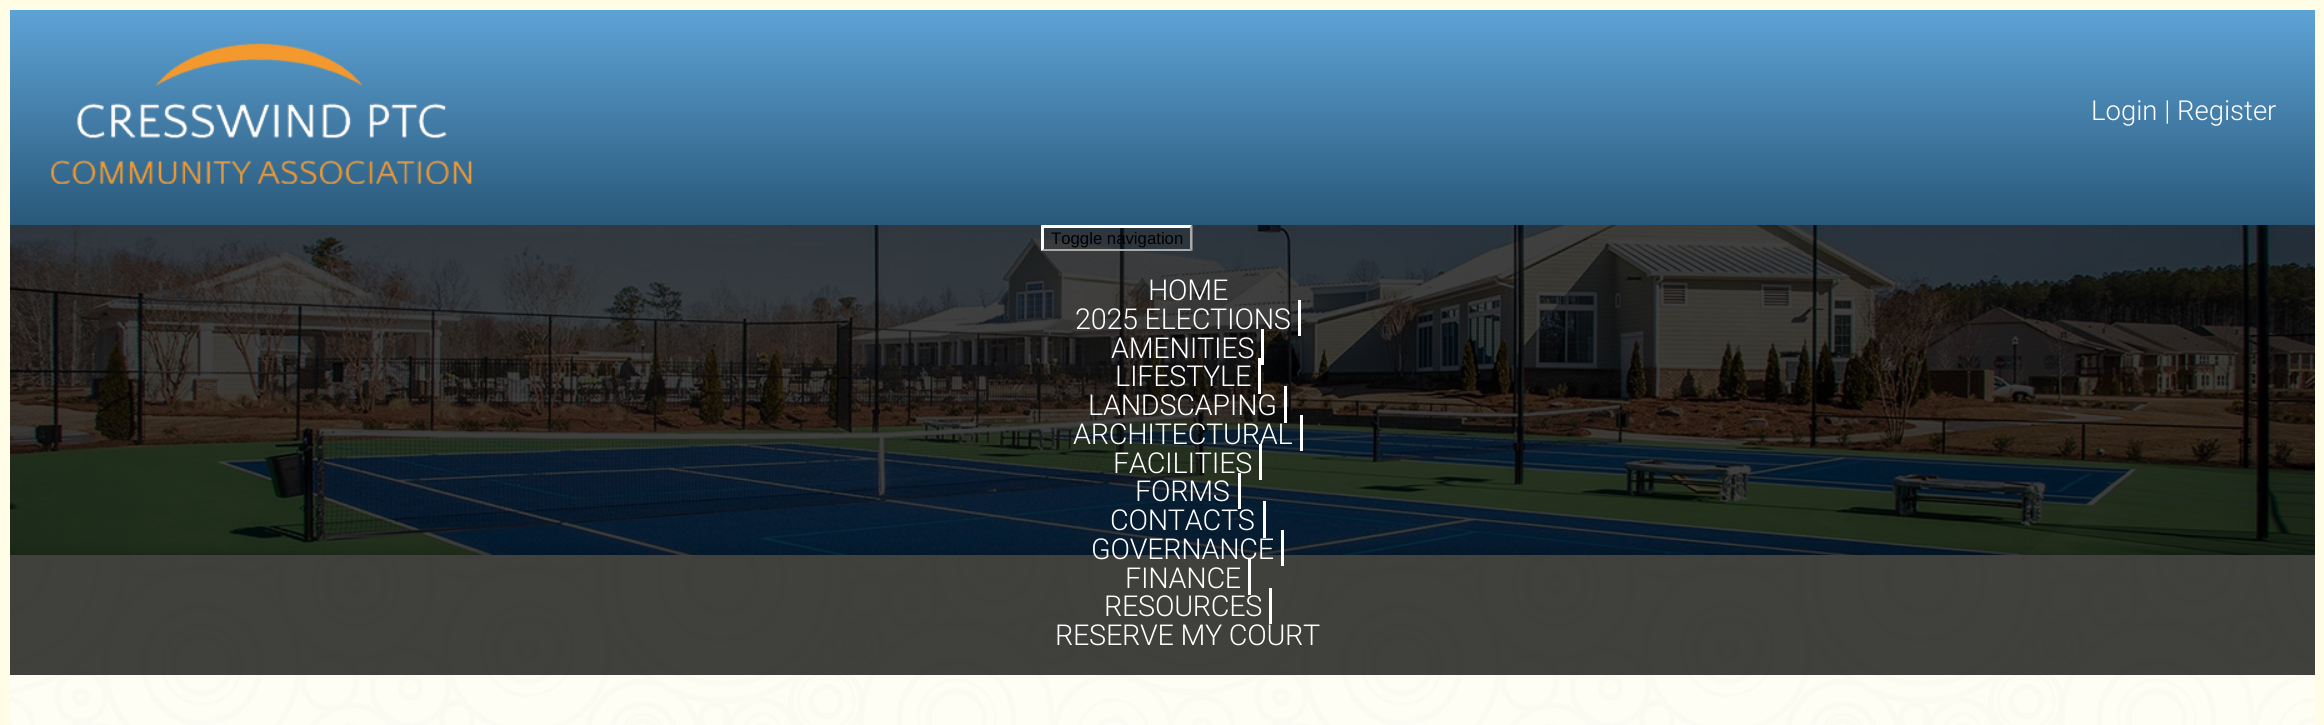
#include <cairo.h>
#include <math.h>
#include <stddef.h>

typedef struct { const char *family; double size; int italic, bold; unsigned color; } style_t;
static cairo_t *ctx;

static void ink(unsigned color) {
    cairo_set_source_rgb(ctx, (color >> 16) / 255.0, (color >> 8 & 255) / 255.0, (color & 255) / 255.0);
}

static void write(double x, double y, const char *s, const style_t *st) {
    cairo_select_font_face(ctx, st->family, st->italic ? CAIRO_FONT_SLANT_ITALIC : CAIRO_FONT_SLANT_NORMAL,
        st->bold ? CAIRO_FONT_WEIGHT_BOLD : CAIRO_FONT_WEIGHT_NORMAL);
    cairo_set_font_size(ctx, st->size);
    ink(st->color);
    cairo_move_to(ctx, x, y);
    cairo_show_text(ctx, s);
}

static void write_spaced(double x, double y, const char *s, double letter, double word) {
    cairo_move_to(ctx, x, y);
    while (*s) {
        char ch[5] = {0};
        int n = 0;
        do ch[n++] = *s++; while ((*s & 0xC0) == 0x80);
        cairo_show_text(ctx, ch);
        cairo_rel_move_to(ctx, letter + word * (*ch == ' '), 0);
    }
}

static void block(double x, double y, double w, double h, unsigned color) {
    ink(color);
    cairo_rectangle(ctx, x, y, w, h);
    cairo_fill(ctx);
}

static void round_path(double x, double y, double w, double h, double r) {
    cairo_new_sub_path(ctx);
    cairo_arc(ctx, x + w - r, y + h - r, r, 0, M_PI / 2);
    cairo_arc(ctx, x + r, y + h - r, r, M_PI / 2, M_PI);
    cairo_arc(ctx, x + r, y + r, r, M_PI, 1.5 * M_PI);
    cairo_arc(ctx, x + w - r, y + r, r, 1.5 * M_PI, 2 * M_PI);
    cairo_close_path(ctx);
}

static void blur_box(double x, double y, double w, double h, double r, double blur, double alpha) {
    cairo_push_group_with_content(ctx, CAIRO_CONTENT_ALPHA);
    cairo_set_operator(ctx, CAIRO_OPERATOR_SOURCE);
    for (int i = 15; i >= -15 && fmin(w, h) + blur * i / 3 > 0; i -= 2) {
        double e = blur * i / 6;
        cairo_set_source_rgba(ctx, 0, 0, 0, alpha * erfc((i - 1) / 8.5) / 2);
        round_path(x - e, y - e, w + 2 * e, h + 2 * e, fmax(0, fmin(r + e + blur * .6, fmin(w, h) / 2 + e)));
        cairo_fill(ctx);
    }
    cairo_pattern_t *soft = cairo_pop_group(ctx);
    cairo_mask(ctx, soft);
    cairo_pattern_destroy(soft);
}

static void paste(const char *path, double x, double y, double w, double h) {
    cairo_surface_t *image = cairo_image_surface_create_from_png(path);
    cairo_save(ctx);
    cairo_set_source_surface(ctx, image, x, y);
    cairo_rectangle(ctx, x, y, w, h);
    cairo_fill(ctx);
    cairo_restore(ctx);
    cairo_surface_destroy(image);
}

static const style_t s1 = {"Roboto Light", 27.5, 0, 0, 0xffffff};
static const style_t s2 = {"Liberation Sans", 16.75, 0, 0, 0x000000};

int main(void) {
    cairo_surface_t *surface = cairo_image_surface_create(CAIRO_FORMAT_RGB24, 2324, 725);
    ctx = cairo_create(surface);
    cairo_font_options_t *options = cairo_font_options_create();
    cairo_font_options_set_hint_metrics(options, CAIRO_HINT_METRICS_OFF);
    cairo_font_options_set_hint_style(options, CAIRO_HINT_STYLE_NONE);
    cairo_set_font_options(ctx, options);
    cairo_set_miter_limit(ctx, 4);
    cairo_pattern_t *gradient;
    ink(0xfffde5);
    cairo_paint(ctx);
    gradient = cairo_pattern_create_linear(1163, 10, 1163, 225);
    cairo_pattern_add_color_stop_rgba(gradient, 0, 0.365, 0.639, 0.839, 1);
    cairo_pattern_add_color_stop_rgba(gradient, 1, 0.161, 0.345, 0.478, 1);
    cairo_set_source(ctx, gradient);
    cairo_pattern_destroy(gradient);
    cairo_rectangle(ctx, 10, 10, 2305, 215);
    cairo_fill(ctx);
    paste("pic1.png", 51, 43, 421, 141);
    write(2091, 120, "Login | Register", &s1);
    paste("pic2.png", 10, 225, 2305, 330);
    paste("pic3.png", 10, 555, 2305, 170);
    cairo_save(ctx);
    cairo_rectangle(ctx, 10, 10, 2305, 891);
    cairo_clip(ctx);
    cairo_rectangle(ctx, 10, 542, 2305, 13);
    cairo_clip(ctx);
    ink(0x010202);
    blur_box(10, 555, 2305, 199, 0, 9.5, 0.25);
    cairo_restore(ctx);
    cairo_set_source_rgba(ctx, 0, 0, 0, 0.75);
    cairo_rectangle(ctx, 10, 225, 2305, 450);
    cairo_fill(ctx);
    ink(0xffffff);
    cairo_new_path(ctx);
    cairo_move_to(ctx, 1041, 225);
    cairo_line_to(ctx, 1192, 225);
    cairo_line_to(ctx, 1190, 228);
    cairo_line_to(ctx, 1044, 228);
    cairo_close_path(ctx);
    cairo_fill(ctx);
    ink(0xaaaaaa);
    cairo_new_path(ctx);
    cairo_move_to(ctx, 1192.5, 225);
    cairo_line_to(ctx, 1192.5, 251);
    cairo_line_to(ctx, 1190, 249);
    cairo_line_to(ctx, 1190, 227.5);
    cairo_close_path(ctx);
    cairo_fill(ctx);
    cairo_new_path(ctx);
    cairo_move_to(ctx, 1192, 251);
    cairo_line_to(ctx, 1041, 251);
    cairo_line_to(ctx, 1044, 249);
    cairo_line_to(ctx, 1190, 249);
    cairo_close_path(ctx);
    cairo_fill(ctx);
    ink(0xffffff);
    cairo_new_path(ctx);
    cairo_move_to(ctx, 1041, 251);
    cairo_line_to(ctx, 1041, 225);
    cairo_line_to(ctx, 1044, 227.5);
    cairo_line_to(ctx, 1044, 249);
    cairo_close_path(ctx);
    cairo_fill(ctx);
    write(1051, 244, "Toggle navigation", &s2);
    cairo_select_font_face(ctx, "Roboto Light", CAIRO_FONT_SLANT_NORMAL, CAIRO_FONT_WEIGHT_NORMAL);
    cairo_set_font_size(ctx, 28.75);
    ink(0xffffff);
    write_spaced(1148, 300, "HOME", -0.25, 0);
    write_spaced(1075, 329, "2025 ELECTIONS", -0.25, 0);
    block(1298, 300, 3, 36, 0xffffff);
    write_spaced(1111, 358, "AMENITIES", -0.25, 0);
    block(1261, 329, 3, 36, 0xffffff);
    write_spaced(1115, 386, "LIFESTYLE", -0.25, 0);
    block(1258, 358, 3, 36, 0xffffff);
    write_spaced(1088, 415, "LANDSCAPING", -0.25, 0);
    block(1284, 386, 3, 37, 0xffffff);
    write_spaced(1073, 444, "ARCHITECTURAL", -0.25, 0);
    block(1300, 415, 3, 36, 0xffffff);
    write_spaced(1113, 473, "FACILITIES", -0.25, 0);
    block(1259, 444, 3, 36, 0xffffff);
    write_spaced(1135, 501, "FORMS", -0.25, 0);
    block(1238, 473, 3, 36, 0xffffff);
    write_spaced(1110, 530, "CONTACTS", -0.25, 0);
    block(1263, 501, 3, 37, 0xffffff);
    write_spaced(1091, 559, "GOVERNANCE", -0.25, 0);
    block(1281, 530, 3, 36, 0xffffff);
    write_spaced(1125, 588, "FINANCE", -0.25, 0);
    block(1248, 559, 3, 36, 0xffffff);
    write_spaced(1104, 616, "RESOURCES", -0.25, 0);
    block(1269, 588, 3, 36, 0xffffff);
    write_spaced(1055, 645, "RESERVE MY COURT", -0.25, 0);
    cairo_surface_write_to_png(surface, "screenshot.png");
    cairo_font_options_destroy(options);
    cairo_destroy(ctx);
    cairo_surface_destroy(surface);
    return 0;
}
